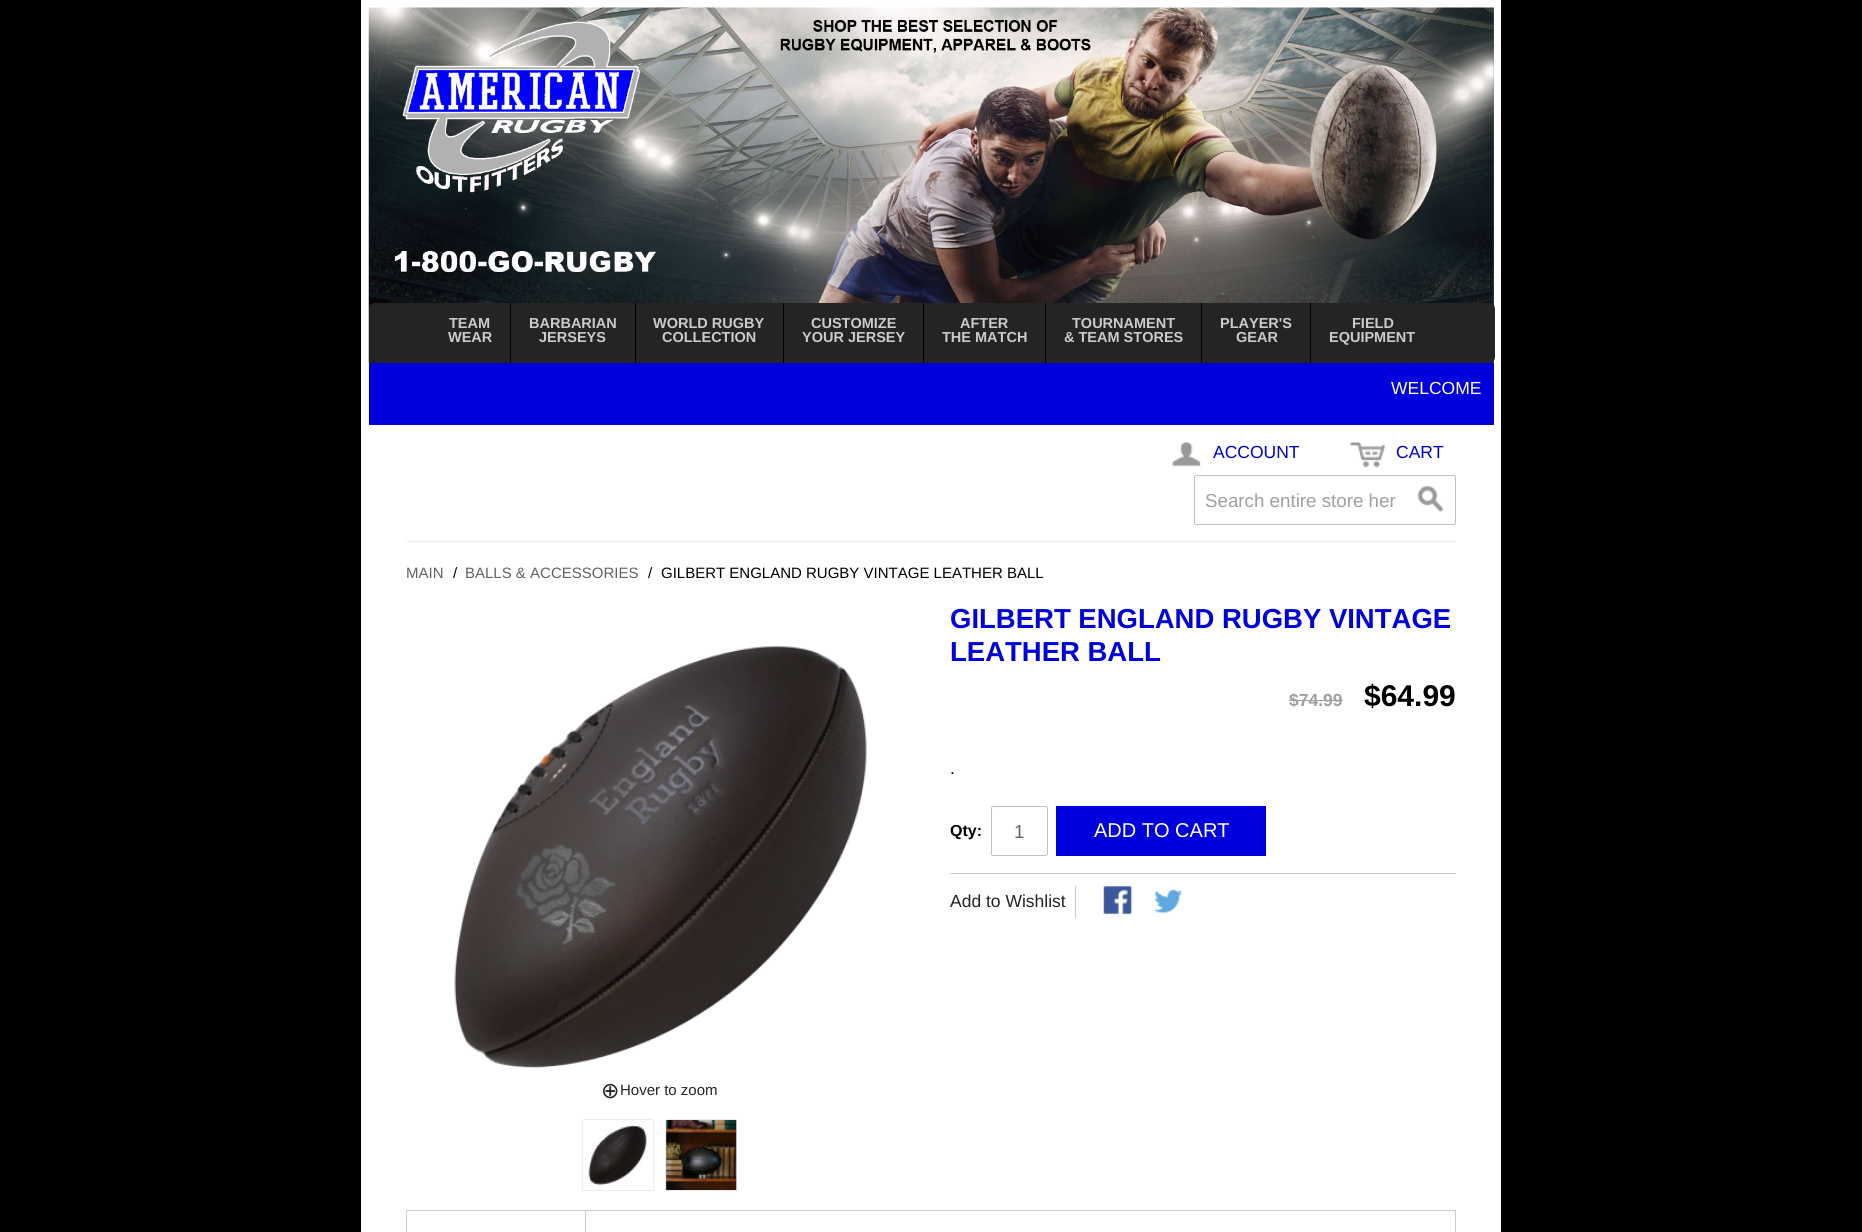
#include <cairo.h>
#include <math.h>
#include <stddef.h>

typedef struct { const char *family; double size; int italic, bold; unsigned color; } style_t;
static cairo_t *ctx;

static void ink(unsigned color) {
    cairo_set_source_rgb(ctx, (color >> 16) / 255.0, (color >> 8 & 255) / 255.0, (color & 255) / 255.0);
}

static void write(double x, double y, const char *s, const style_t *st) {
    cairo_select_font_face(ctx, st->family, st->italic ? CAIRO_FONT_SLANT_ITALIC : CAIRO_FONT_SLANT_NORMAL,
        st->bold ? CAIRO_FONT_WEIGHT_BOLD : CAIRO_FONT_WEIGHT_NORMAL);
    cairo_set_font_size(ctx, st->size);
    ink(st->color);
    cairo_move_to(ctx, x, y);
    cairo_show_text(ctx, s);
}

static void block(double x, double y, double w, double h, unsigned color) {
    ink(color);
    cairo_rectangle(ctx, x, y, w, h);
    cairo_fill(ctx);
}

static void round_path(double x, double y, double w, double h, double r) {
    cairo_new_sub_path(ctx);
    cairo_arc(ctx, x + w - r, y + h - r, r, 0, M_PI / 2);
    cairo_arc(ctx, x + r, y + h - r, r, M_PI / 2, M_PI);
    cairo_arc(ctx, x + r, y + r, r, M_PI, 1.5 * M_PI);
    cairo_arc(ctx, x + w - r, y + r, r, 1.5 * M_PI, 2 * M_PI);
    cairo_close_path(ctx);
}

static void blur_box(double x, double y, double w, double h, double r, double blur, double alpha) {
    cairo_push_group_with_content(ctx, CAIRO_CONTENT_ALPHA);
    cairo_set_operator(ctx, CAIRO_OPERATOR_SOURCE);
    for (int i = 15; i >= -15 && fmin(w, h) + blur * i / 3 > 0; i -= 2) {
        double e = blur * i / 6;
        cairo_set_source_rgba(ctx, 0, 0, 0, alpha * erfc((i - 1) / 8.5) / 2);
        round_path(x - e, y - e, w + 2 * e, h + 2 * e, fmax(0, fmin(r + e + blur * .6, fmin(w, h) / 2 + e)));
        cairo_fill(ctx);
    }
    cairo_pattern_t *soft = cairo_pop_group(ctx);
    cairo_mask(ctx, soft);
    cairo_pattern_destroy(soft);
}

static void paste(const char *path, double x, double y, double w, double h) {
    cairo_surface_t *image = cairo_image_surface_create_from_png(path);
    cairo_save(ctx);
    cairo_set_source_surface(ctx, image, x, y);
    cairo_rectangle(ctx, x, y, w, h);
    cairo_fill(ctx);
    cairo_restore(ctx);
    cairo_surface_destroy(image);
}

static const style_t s1 = {"Liberation Sans", 14.5, 0, 1, 0xcccaca};
static const style_t s2 = {"Liberation Sans", 17.5, 0, 0, 0xffffff};
static const style_t s3 = {"Liberation Sans", 17.5, 0, 0, 0x0000dc};
static const style_t s4 = {"Liberation Sans", 18.75, 0, 0, 0xa0a0a0};
static const style_t s5 = {"Liberation Sans", 15, 0, 0, 0x636363};
static const style_t s6 = {"Liberation Sans", 15, 0, 0, 0x000000};
static const style_t s7 = {"Liberation Sans", 27.5, 0, 1, 0x0000dc};
static const style_t s8 = {"Liberation Sans", 17.5, 0, 1, 0xa0a0a0};
static const style_t s9 = {"Liberation Sans", 30, 0, 1, 0x000000};
static const style_t s10 = {"Liberation Sans", 17.5, 0, 0, 0x000000};
static const style_t s11 = {"Liberation Sans", 16, 0, 1, 0x000000};
static const style_t s12 = {"Liberation Sans", 18.75, 0, 0, 0x636363};
static const style_t s13 = {"Liberation Sans", 20, 0, 0, 0xffffff};
static const style_t s14 = {"Liberation Sans", 17.5, 0, 0, 0x242424};
static const style_t s15 = {"DejaVu Sans", 22, 0, 0, 0x242424};
static const style_t s16 = {"Liberation Sans", 15, 0, 0, 0x242424};

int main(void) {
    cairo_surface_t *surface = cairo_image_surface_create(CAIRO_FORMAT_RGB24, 1862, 1232);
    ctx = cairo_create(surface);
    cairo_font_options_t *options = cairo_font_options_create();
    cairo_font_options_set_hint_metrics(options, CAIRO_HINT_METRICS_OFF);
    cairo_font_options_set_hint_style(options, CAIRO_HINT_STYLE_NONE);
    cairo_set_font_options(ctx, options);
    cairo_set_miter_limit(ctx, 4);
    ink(0x000000);
    cairo_paint(ctx);
    cairo_rectangle(ctx, 365, 4, 1132, 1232);
    ink(0xffffff);
    cairo_set_line_width(ctx, 8);
    cairo_stroke(ctx);
    cairo_set_source_rgba(ctx, 0, 0, 0, 0.5);
    cairo_rectangle(ctx, 1493, 8, 1, 355);
    cairo_fill(ctx);
    paste("pic1.png", 368, 7, 1126, 356);
    paste("pic2.png", 402, 21, 239, 172);
    ink(0x242424);
    round_path(369, 303, 1126, 60, 6);
    cairo_fill(ctx);
    block(510, 303, 1, 60, 0x000000);
    write(449, 328, "TEAM", &s1);
    write(448, 342, "WEAR", &s1);
    block(635, 303, 1, 60, 0x000000);
    write(529, 328, "BARBARIAN", &s1);
    write(539, 342, "JERSEYS", &s1);
    block(783, 303, 1, 60, 0x000000);
    write(653, 328, "WORLD RUGBY", &s1);
    write(662, 342, "COLLECTION", &s1);
    block(923, 303, 1, 60, 0x000000);
    write(811, 328, "CUSTOMIZE", &s1);
    write(802, 342, "YOUR JERSEY", &s1);
    block(1045, 303, 1, 60, 0x000000);
    write(960, 328, "AFTER", &s1);
    write(942, 342, "THE MATCH", &s1);
    block(1201, 303, 1, 60, 0x000000);
    write(1072, 328, "TOURNAMENT", &s1);
    write(1064, 342, "& TEAM STORES", &s1);
    block(1310, 303, 1, 60, 0x000000);
    write(1220, 328, "PLAYER'S", &s1);
    write(1236, 342, "GEAR", &s1);
    write(1352, 328, "FIELD", &s1);
    write(1329, 342, "EQUIPMENT", &s1);
    block(369, 425, 1124, 807, 0xffffff);
    block(369, 363, 1125, 62, 0x0000dc);
    write(1391, 394, "WELCOME", &s2);
    paste("pic3.png", 1172, 442, 29, 25);
    write(1213, 458, "ACCOUNT", &s3);
    paste("pic4.png", 1350, 442, 36, 26);
    write(1396, 458, "CART", &s3);
    round_path(1194.5, 475.5, 261, 49, 2);
    ink(0xc0c0c0);
    cairo_set_line_width(ctx, 1);
    cairo_stroke(ctx);
    write(1205, 507, "Search entire store her", &s4);
    paste("pic5.png", 1417, 485, 27, 27);
    block(406, 541, 1050, 1, 0xededed);
    write(406, 578, "MAIN", &s5);
    write(453, 578, "/", &s6);
    write(465, 578, "BALLS & ACCESSORIES", &s5);
    write(648, 578, "/", &s6);
    write(661, 578, "GILBERT ENGLAND RUGBY VINTAGE LEATHER BALL", &s6);
    write(950, 628, "GILBERT ENGLAND RUGBY VINTAGE", &s7);
    write(950, 661, "LEATHER BALL", &s7);
    write(1289, 706, "$74.99", &s8);
    block(1289, 700, 54, 1, 0xa0a0a0);
    write(1364, 706, "$64.99", &s9);
    write(950, 774, ".", &s10);
    block(950, 873, 506, 1, 0xcccccc);
    write(950, 836, "Qty:", &s11);
    round_path(991.5, 806.5, 56, 49, 2);
    ink(0xc0c0c0);
    cairo_stroke(ctx);
    write(1014, 838, "1", &s12);
    block(1056, 806, 210, 50, 0x0000dc);
    write(1094, 837, "ADD TO CART", &s13);
    block(1075, 886, 1, 32, 0xcccccc);
    write(950, 907, "Add to Wishlist", &s14);
    paste("pic6.png", 1103, 886, 30, 29);
    paste("pic7.png", 1154, 889, 29, 25);
    paste("pic8.png", 454, 646, 413, 423);
    write(601, 1098, "⊕", &s15);
    write(620, 1095, "Hover to zoom", &s16);
    cairo_save(ctx);
    cairo_set_fill_rule(ctx, CAIRO_FILL_RULE_EVEN_ODD);
    cairo_new_path(ctx);
    cairo_move_to(ctx, 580, 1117);
    cairo_line_to(ctx, 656, 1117);
    cairo_line_to(ctx, 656, 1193);
    cairo_line_to(ctx, 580, 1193);
    cairo_close_path(ctx);
    cairo_move_to(ctx, 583, 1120);
    cairo_line_to(ctx, 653, 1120);
    cairo_line_to(ctx, 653, 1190);
    cairo_line_to(ctx, 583, 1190);
    cairo_close_path(ctx);
    cairo_clip(ctx);
    ink(0x000000);
    blur_box(583, 1120, 70, 70, 0, 0.5, 0.3);
    cairo_restore(ctx);
    paste("pic9.png", 588, 1125, 59, 61);
    ink(0x000000);
    blur_box(666, 1120, 70, 70, 0, 0.5, 0.3);
    paste("pic10.png", 666, 1120, 71, 70);
    cairo_rectangle(ctx, 406.5, 1210.5, 1049, 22);
    ink(0xcccccc);
    cairo_stroke(ctx);
    block(585, 1211, 1, 21, 0xcccccc);
    cairo_surface_write_to_png(surface, "screenshot.png");
    cairo_font_options_destroy(options);
    cairo_destroy(ctx);
    cairo_surface_destroy(surface);
    return 0;
}
